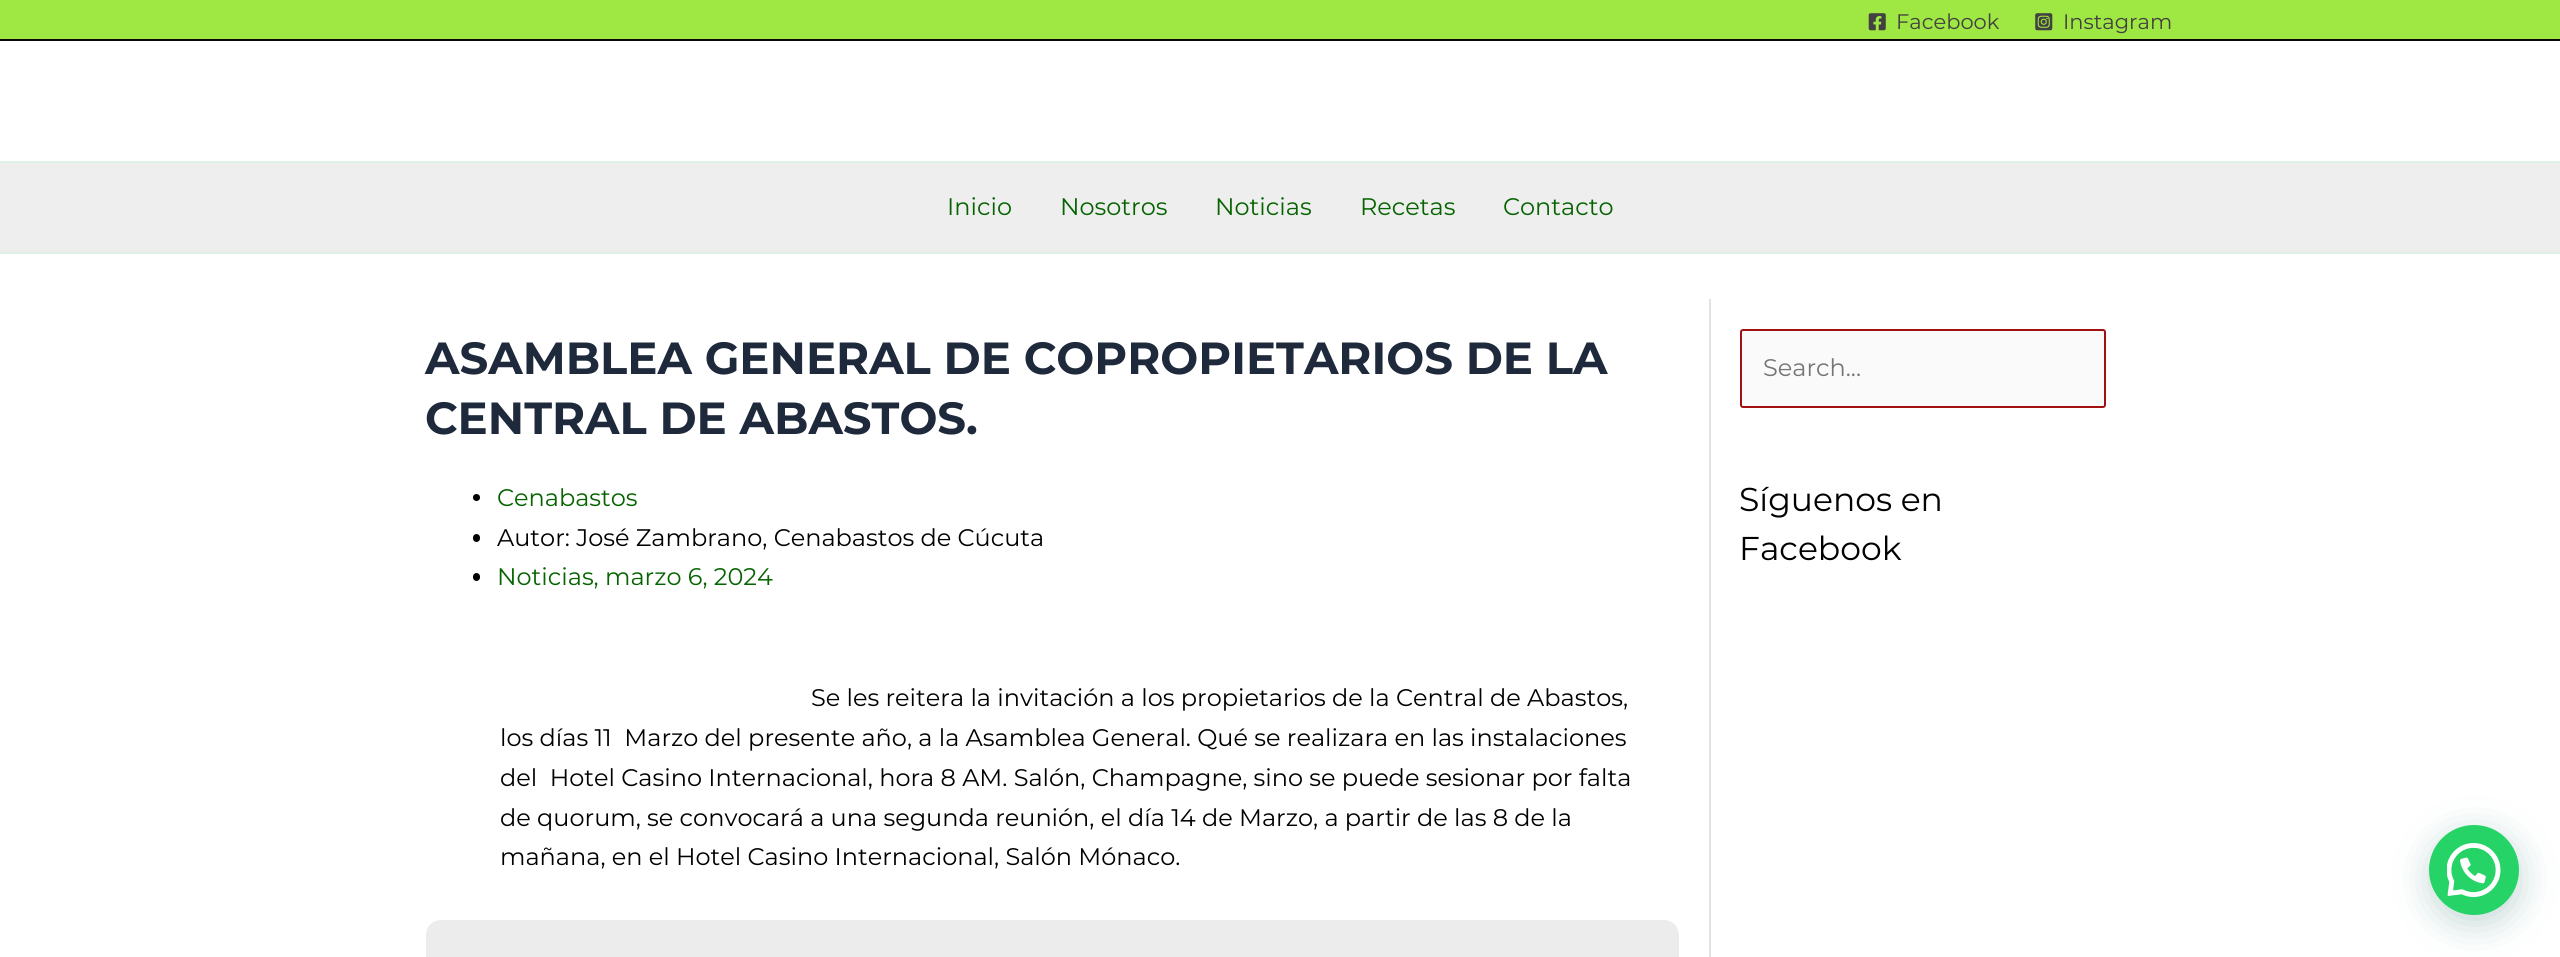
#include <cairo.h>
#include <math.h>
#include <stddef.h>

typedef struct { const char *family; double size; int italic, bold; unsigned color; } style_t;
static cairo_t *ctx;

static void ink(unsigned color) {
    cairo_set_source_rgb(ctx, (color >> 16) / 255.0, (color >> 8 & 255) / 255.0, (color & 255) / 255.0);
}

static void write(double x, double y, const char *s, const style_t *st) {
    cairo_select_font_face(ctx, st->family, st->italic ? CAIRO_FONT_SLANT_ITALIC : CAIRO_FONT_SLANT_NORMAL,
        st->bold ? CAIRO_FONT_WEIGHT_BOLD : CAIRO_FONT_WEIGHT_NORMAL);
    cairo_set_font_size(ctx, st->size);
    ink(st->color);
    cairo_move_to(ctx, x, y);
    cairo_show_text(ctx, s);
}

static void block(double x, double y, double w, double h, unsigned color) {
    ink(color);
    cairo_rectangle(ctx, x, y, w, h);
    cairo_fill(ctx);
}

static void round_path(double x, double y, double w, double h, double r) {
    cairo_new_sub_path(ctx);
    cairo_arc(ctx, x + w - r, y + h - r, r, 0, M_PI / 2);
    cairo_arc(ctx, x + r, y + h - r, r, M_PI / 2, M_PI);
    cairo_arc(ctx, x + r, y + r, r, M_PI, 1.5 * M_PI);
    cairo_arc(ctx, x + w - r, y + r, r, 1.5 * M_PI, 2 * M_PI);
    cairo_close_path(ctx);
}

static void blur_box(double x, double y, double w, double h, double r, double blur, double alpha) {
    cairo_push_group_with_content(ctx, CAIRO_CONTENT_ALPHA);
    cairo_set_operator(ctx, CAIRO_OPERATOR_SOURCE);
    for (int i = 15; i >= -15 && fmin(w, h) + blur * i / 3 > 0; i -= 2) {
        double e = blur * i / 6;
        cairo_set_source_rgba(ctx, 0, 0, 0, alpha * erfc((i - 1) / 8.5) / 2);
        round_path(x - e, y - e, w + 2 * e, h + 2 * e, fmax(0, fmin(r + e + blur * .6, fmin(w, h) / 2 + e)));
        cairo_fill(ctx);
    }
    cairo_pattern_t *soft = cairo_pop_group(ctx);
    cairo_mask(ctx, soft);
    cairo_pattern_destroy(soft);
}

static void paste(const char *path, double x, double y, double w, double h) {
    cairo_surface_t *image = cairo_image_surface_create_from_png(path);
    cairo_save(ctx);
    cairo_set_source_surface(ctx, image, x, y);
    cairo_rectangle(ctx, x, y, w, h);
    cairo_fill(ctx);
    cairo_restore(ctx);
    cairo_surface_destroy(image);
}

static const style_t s1 = {"Montserrat", 21, 0, 0, 0x424141};
static const style_t s2 = {"Montserrat", 24, 0, 0, 0x056300};
static const style_t s3 = {"Montserrat", 45, 0, 1, 0x1e293b};
static const style_t s4 = {"Montserrat", 24, 0, 0, 0x000000};
static const style_t s5 = {"Montserrat", 24, 0, 0, 0x757575};
static const style_t s6 = {"Montserrat", 33, 0, 0, 0x000000};

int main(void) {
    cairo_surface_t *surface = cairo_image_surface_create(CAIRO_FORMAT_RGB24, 2560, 957);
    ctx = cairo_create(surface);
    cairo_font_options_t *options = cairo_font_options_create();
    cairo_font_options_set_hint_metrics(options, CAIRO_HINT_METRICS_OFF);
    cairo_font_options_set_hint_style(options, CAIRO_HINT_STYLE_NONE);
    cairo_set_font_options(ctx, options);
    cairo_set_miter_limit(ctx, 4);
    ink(0xffffff);
    cairo_paint(ctx);
    block(0, 0, 2560, 39, 0x9fe843);
    block(0, 39, 2560, 2, 0x080808);
    paste("pic1.png", 1868, 13, 18, 18);
    write(1896, 29, "Facebook", &s1);
    paste("pic2.png", 2035, 13, 18, 18);
    write(2063, 29, "Instagram", &s1);
    block(0, 161, 2560, 2, 0xe1f0e7);
    block(0, 163, 2560, 89, 0xeeeeee);
    block(0, 252, 2560, 2, 0xe1f0e7);
    write(947, 215, "Inicio", &s2);
    write(1060, 215, "Nosotros", &s2);
    write(1215, 215, "Noticias", &s2);
    write(1360, 215, "Recetas", &s2);
    write(1503, 215, "Contacto", &s2);
    write(425, 374, "ASAMBLEA GENERAL DE COPROPIETARIOS DE LA", &s3);
    write(425, 434, "CENTRAL DE ABASTOS.", &s3);
    ink(0x000000);
    cairo_new_path(ctx);
    cairo_arc(ctx, 476.5, 497.5, 3.5, 0, 2 * M_PI);
    cairo_fill(ctx);
    write(497, 506, "Cenabastos", &s2);
    ink(0x000000);
    round_path(473, 534, 7, 8, 3.5);
    cairo_fill(ctx);
    write(497, 546, "Autor: José Zambrano, Cenabastos de Cúcuta", &s4);
    round_path(473, 573, 7, 8, 3.5);
    cairo_fill(ctx);
    write(497, 585, "Noticias, marzo 6, 2024", &s2);
    write(811, 706, "Se les reitera la invitación a los propietarios de la Central de Abastos,", &s4);
    write(500, 746, "los días 11  Marzo del presente año, a la Asamblea General. Qué se realizara en las instalaciones", &s4);
    write(500, 786, "del  Hotel Casino Internacional, hora 8 AM. Salón, Champagne, sino se puede sesionar por falta", &s4);
    write(500, 826, "de quorum, se convocará a una segunda reunión, el día 14 de Marzo, a partir de las 8 de la", &s4);
    write(500, 865, "mañana, en el Hotel Casino Internacional, Salón Mónaco.", &s4);
    ink(0xececec);
    round_path(426, 920, 1253, 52, 15);
    cairo_fill(ctx);
    block(1709, 299, 2, 658, 0xe3e3e3);
    ink(0xfafafa);
    round_path(1741, 330, 364, 77, 2);
    cairo_fill_preserve(ctx);
    ink(0xa11111);
    cairo_stroke(ctx);
    write(1763, 376, "Search...", &s5);
    write(1739, 511, "Síguenos en", &s6);
    write(1739, 560, "Facebook", &s6);
    ink(0x075e54);
    blur_box(2430, 834, 90, 90, 45, 18, 0.24);
    ink(0x25d366);
    cairo_arc(ctx, 2474, 870, 45, 0, 2 * M_PI);
    cairo_fill(ctx);
    paste("pic3.png", 2447, 843, 54, 54);
    cairo_surface_write_to_png(surface, "screenshot.png");
    cairo_font_options_destroy(options);
    cairo_destroy(ctx);
    cairo_surface_destroy(surface);
    return 0;
}
